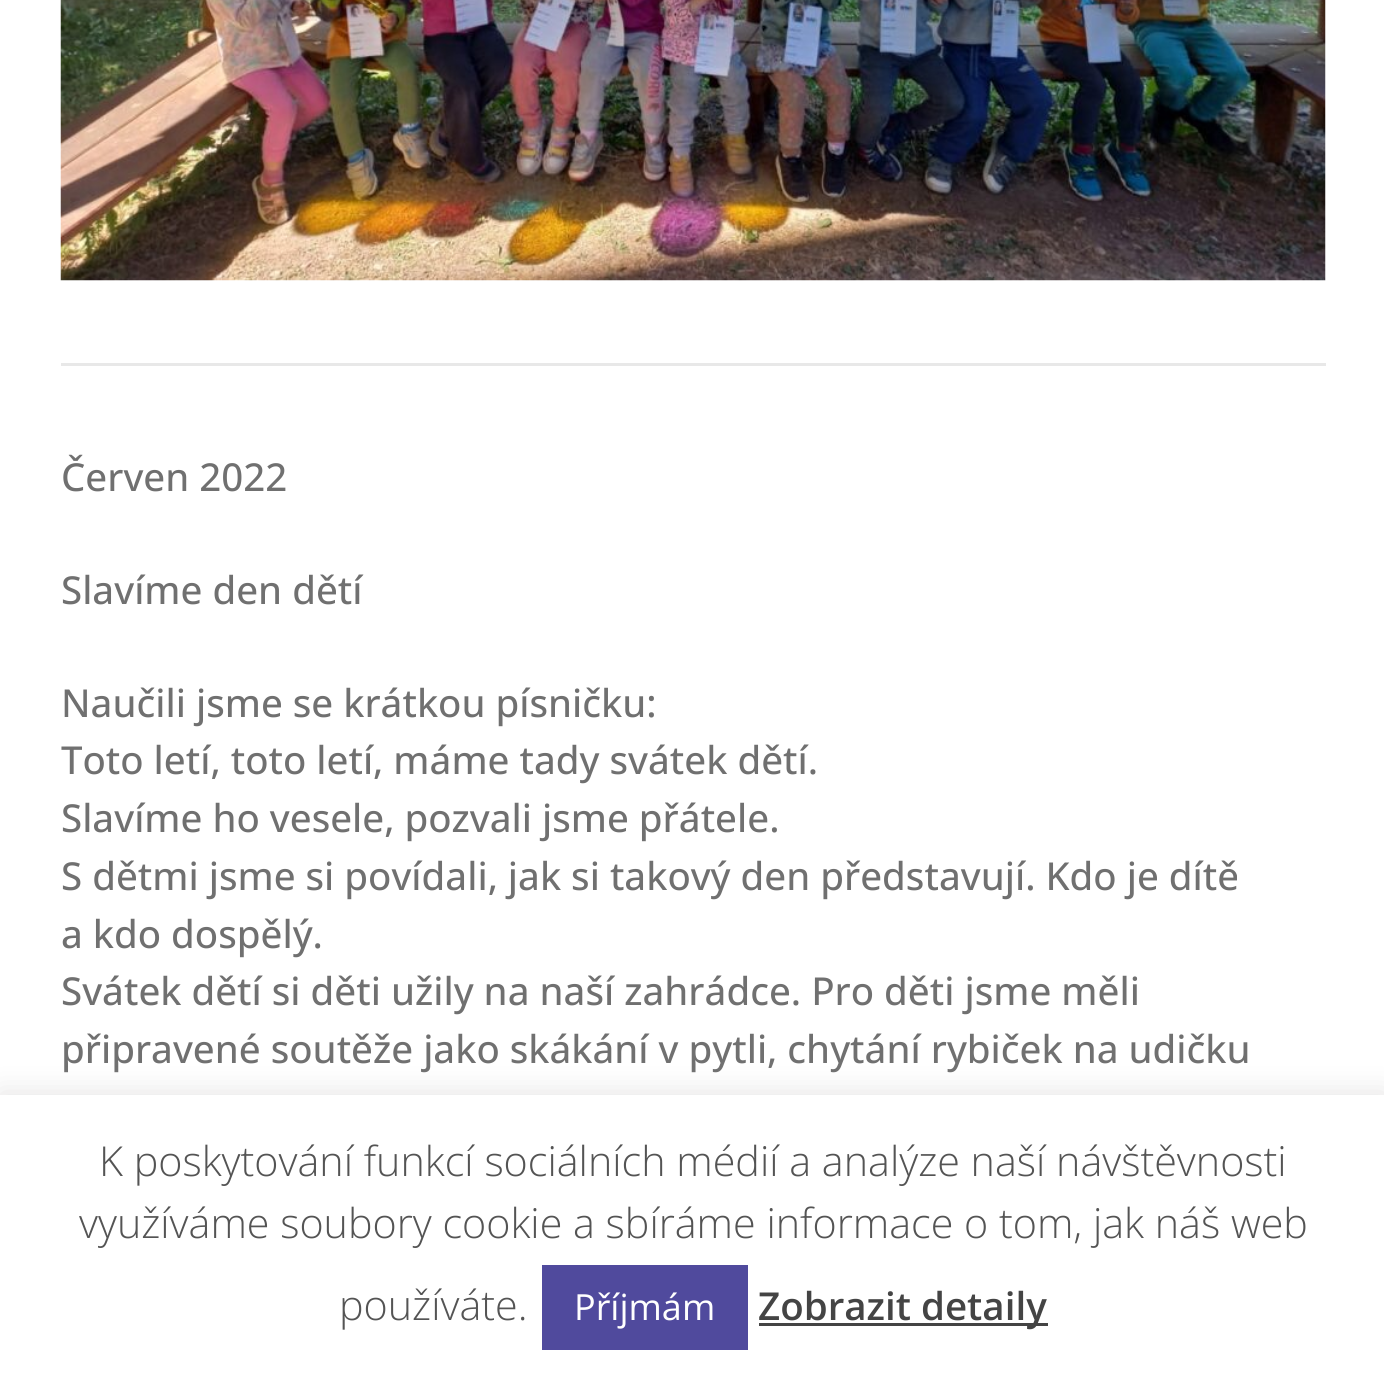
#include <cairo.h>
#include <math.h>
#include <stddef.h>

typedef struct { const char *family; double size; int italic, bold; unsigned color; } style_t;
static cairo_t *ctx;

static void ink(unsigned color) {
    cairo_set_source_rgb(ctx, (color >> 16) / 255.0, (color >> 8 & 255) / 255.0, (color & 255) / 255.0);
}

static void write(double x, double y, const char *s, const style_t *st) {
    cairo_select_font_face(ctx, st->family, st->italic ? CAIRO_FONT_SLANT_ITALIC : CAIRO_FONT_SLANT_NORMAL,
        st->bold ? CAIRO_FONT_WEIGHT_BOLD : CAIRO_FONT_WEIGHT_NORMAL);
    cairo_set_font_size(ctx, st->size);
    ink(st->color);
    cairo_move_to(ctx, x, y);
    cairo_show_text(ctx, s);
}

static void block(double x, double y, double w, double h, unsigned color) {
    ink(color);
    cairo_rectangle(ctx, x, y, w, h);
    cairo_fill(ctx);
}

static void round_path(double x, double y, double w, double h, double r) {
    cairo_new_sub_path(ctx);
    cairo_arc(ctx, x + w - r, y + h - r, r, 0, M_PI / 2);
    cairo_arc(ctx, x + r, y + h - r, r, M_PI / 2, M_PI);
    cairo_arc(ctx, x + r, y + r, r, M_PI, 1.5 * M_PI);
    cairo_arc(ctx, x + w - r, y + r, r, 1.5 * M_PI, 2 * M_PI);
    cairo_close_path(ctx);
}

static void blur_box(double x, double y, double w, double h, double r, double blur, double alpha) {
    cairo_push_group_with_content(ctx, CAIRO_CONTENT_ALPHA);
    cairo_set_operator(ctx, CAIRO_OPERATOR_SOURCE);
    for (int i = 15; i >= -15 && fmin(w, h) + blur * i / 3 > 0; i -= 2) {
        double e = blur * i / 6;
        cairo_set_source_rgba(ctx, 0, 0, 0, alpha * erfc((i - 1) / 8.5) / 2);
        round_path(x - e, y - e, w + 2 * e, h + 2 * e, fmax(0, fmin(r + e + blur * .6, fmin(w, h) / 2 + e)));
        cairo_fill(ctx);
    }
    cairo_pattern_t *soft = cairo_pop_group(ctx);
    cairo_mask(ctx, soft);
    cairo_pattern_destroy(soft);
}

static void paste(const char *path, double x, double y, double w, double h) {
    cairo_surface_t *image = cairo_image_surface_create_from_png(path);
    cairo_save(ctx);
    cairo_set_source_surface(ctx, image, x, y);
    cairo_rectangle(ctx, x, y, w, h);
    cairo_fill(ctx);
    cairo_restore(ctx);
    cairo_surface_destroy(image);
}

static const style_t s1 = {"Open Sans Medium", 38.5, 0, 0, 0x707070};
static const style_t s2 = {"Open Sans Light", 41.25, 0, 0, 0x545454};
static const style_t s3 = {"Open Sans", 36, 0, 0, 0xffffff};
static const style_t s4 = {"Open Sans SemiBold", 38.5, 0, 0, 0x444444};

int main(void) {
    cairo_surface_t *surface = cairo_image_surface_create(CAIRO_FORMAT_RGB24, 1384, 1381);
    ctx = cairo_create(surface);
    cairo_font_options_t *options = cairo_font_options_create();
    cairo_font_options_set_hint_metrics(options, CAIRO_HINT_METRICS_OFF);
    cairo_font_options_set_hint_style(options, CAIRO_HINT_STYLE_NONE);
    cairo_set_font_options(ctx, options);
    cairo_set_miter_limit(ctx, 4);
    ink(0xffffff);
    cairo_paint(ctx);
    paste("pic1.png", 60, 0, 1266, 281);
    block(61, 363, 1265, 3, 0xe8e8e8);
    write(61, 491, "Červen 2022", &s1);
    write(61, 604, "Slavíme den dětí", &s1);
    write(61, 717, "Naučili jsme se krátkou písničku:", &s1);
    write(61, 774, "Toto letí, toto letí, máme tady svátek dětí.", &s1);
    write(61, 832, "Slavíme ho vesele, pozvali jsme přátele.", &s1);
    write(61, 890, "S dětmi jsme si povídali, jak si takový den představují. Kdo je dítě", &s1);
    write(61, 948, "a kdo dospělý.", &s1);
    write(61, 1005, "Svátek dětí si děti užily na naší zahrádce. Pro děti jsme měli", &s1);
    write(61, 1063, "připravené soutěže jako skákání v pytli, chytání rybiček na udičku", &s1);
    ink(0xacabab);
    blur_box(0, 1092, 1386, 289, 0, 14, 0.3);
    block(0, 1095, 1384, 286, 0xffffff);
    write(99, 1176, "K poskytování funkcí sociálních médií a analýze naší návštěvnosti", &s2);
    write(79, 1238, "využíváme soubory cookie a sbíráme informace o tom, jak náš web", &s2);
    write(339, 1320, "používáte.", &s2);
    block(542, 1265, 206, 85, 0x504a9d);
    write(574, 1320, "Příjmám", &s3);
    block(759, 1323, 289, 3, 0x444444);
    write(758, 1320, "Zobrazit detaily", &s4);
    cairo_surface_write_to_png(surface, "screenshot.png");
    cairo_font_options_destroy(options);
    cairo_destroy(ctx);
    cairo_surface_destroy(surface);
    return 0;
}
